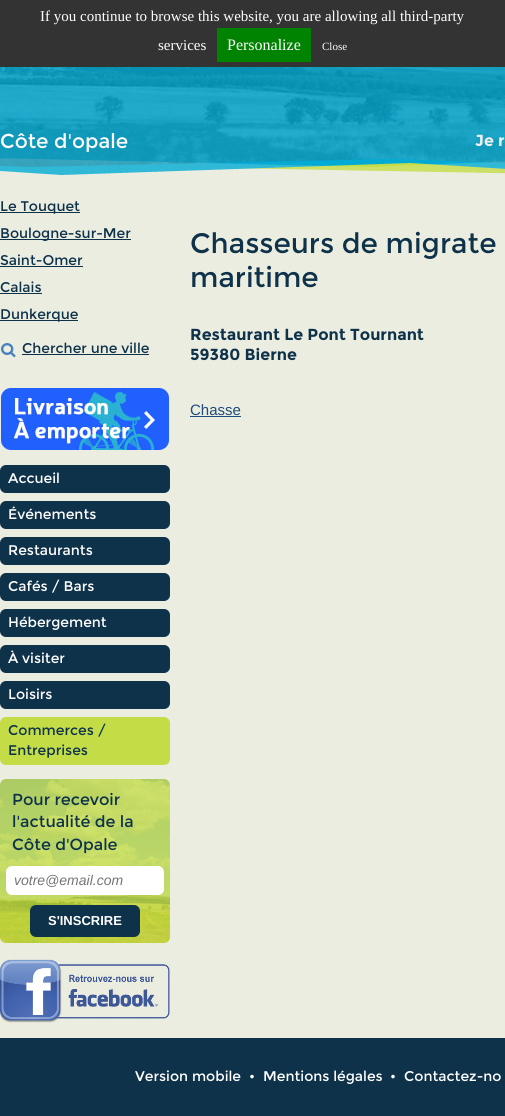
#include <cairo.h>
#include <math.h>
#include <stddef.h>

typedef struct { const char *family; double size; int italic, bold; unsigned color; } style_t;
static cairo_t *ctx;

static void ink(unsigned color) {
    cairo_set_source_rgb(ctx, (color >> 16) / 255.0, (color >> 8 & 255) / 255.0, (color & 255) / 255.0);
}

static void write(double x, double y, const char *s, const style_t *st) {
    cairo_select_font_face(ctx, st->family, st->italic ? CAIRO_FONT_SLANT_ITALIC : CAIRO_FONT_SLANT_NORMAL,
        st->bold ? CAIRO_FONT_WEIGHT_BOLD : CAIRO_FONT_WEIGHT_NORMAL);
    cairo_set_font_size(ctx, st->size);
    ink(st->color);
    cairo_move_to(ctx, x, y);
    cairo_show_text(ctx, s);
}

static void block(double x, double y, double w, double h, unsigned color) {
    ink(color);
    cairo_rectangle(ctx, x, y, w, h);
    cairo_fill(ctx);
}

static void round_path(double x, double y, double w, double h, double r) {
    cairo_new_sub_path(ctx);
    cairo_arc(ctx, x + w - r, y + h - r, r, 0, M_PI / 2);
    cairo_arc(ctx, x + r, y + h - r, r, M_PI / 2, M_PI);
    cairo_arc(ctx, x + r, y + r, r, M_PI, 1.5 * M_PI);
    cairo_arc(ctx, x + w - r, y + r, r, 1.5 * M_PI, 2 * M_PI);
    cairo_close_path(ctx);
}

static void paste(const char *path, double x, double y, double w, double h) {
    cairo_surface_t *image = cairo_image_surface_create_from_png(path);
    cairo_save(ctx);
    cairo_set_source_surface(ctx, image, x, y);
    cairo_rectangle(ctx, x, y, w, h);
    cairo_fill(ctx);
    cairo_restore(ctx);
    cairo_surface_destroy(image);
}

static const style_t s1 = {"Liberation Serif", 15, 0, 0, 0xffffff};
static const style_t s2 = {"Liberation Serif", 16, 0, 0, 0xffffff};
static const style_t s3 = {"Liberation Serif", 11, 0, 0, 0xffffff};
static const style_t s4 = {"Montserrat", 20, 0, 0, 0xffffff};
static const style_t s5 = {"Montserrat", 16, 0, 1, 0xefefef};
static const style_t s6 = {"Montserrat", 14, 0, 0, 0x0f324b};
static const style_t s7 = {"Montserrat", 14, 0, 0, 0xffffff};
static const style_t s8 = {"Montserrat", 16, 0, 0, 0x0f324b};
static const style_t s9 = {"Liberation Sans", 14, 1, 0, 0x757575};
static const style_t s10 = {"Liberation Sans", 13, 0, 1, 0xffffff};
static const style_t s11 = {"Montserrat", 28, 0, 0, 0x0f324b};
static const style_t s12 = {"Montserrat", 16, 0, 1, 0x0f324b};
static const style_t s13 = {"Liberation Sans", 15, 0, 0, 0x204c79};

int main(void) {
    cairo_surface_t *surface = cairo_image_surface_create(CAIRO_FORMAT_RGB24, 505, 1116);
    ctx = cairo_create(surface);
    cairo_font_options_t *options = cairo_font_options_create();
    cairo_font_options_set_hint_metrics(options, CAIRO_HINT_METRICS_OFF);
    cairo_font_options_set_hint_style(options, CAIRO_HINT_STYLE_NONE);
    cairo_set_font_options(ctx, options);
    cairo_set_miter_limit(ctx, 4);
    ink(0xebede0);
    cairo_paint(ctx);
    paste("pic1.png", 0, 67, 505, 108);
    block(0, 0, 505, 67, 0x333333);
    write(40, 21, "If you continue to browse this website, you are allowing all third-party", &s1);
    write(158, 50, "services", &s1);
    block(217, 28, 94, 34, 0x008300);
    write(227, 50, "Personalize", &s2);
    write(322, 50, "Close", &s3);
    write(0, 148, "Côte d'opale", &s4);
    write(475, 146, "Je r", &s5);
    block(0, 212, 80, 1, 0x0f324b);
    write(0, 211, "Le Touquet", &s6);
    block(0, 239, 131, 1, 0x0f324b);
    write(0, 238, "Boulogne-sur-Mer", &s6);
    write(0, 265, "Saint-Omer", &s6);
    block(0, 266, 83, 1, 0x0f324b);
    write(0, 292, "Calais", &s6);
    block(0, 293, 42, 1, 0x0f324b);
    block(0, 320, 78, 1, 0x0f324b);
    write(0, 319, "Dunkerque", &s6);
    paste("pic2.png", 1, 343, 15, 15);
    write(22, 353, "Chercher une ville", &s6);
    block(22, 354, 127, 1, 0x0f324b);
    paste("pic3.png", 0, 387, 170, 64);
    round_path(0, 465, 170, 28, 6);
    cairo_fill(ctx);
    write(8, 483, "Accueil", &s7);
    ink(0x0f324b);
    round_path(0, 501, 170, 28, 6);
    cairo_fill(ctx);
    write(8, 519, "Événements", &s7);
    ink(0x0f324b);
    round_path(0, 537, 170, 28, 6);
    cairo_fill(ctx);
    write(8, 555, "Restaurants", &s7);
    ink(0x0f324b);
    round_path(0, 573, 170, 28, 6);
    cairo_fill(ctx);
    write(8, 591, "Cafés / Bars", &s7);
    ink(0x0f324b);
    round_path(0, 609, 170, 28, 6);
    cairo_fill(ctx);
    write(8, 627, "Hébergement", &s7);
    ink(0x0f324b);
    round_path(0, 645, 170, 28, 6);
    cairo_fill(ctx);
    write(8, 663, "À visiter", &s7);
    ink(0x0f324b);
    round_path(0, 681, 170, 28, 6);
    cairo_fill(ctx);
    write(8, 699, "Loisirs", &s7);
    ink(0xc4dd47);
    round_path(0, 717, 170, 48, 6);
    cairo_fill(ctx);
    write(8, 735, "Commerces /", &s6);
    write(8, 755, "Entreprises", &s6);
    ink(0xc4dd47);
    round_path(0, 779, 170, 164, 6);
    cairo_fill(ctx);
    paste("pic4.png", 0, 779, 170, 164);
    write(12, 805, "Pour recevoir", &s8);
    write(12, 827, "l'actualité de la", &s8);
    write(12, 850, "Côte d'Opale", &s8);
    ink(0xffffff);
    round_path(6, 866, 158, 29, 6);
    cairo_fill(ctx);
    write(14, 885, "votre@email.com", &s9);
    ink(0x0f324b);
    round_path(30, 905, 110, 32, 6);
    cairo_fill(ctx);
    write(48, 925, "S'INSCRIRE", &s10);
    paste("pic5.png", 0, 959, 170, 64);
    write(190, 253, "Chasseurs de migrate", &s11);
    write(190, 287, "maritime", &s11);
    write(190, 340, "Restaurant Le Pont Tournant", &s12);
    write(190, 360, "59380 Bierne", &s12);
    write(190, 415, "Chasse", &s13);
    block(190, 416, 51, 1, 0x204c79);
    block(0, 1038, 505, 78, 0x0f324b);
    write(135, 1081, "Version mobile", &s7);
    write(249, 1081, "•", &s7);
    write(263, 1081, "Mentions légales", &s7);
    write(390, 1081, "•", &s7);
    write(404, 1081, "Contactez-no", &s7);
    cairo_surface_write_to_png(surface, "screenshot.png");
    cairo_font_options_destroy(options);
    cairo_destroy(ctx);
    cairo_surface_destroy(surface);
    return 0;
}
